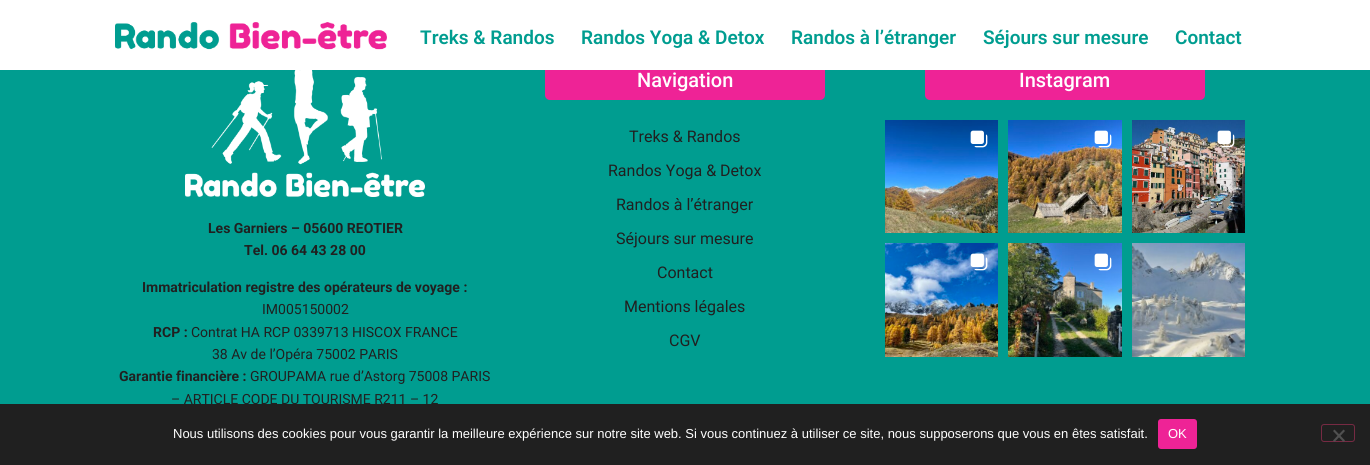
#include <cairo.h>
#include <math.h>
#include <stddef.h>

typedef struct { const char *family; double size; int italic, bold; unsigned color; } style_t;
static cairo_t *ctx;

static void ink(unsigned color) {
    cairo_set_source_rgb(ctx, (color >> 16) / 255.0, (color >> 8 & 255) / 255.0, (color & 255) / 255.0);
}

static void write(double x, double y, const char *s, const style_t *st) {
    cairo_select_font_face(ctx, st->family, st->italic ? CAIRO_FONT_SLANT_ITALIC : CAIRO_FONT_SLANT_NORMAL,
        st->bold ? CAIRO_FONT_WEIGHT_BOLD : CAIRO_FONT_WEIGHT_NORMAL);
    cairo_set_font_size(ctx, st->size);
    ink(st->color);
    cairo_move_to(ctx, x, y);
    cairo_show_text(ctx, s);
}

static void block(double x, double y, double w, double h, unsigned color) {
    ink(color);
    cairo_rectangle(ctx, x, y, w, h);
    cairo_fill(ctx);
}

static void round_path(double x, double y, double w, double h, double r) {
    cairo_new_sub_path(ctx);
    cairo_arc(ctx, x + w - r, y + h - r, r, 0, M_PI / 2);
    cairo_arc(ctx, x + r, y + h - r, r, M_PI / 2, M_PI);
    cairo_arc(ctx, x + r, y + r, r, M_PI, 1.5 * M_PI);
    cairo_arc(ctx, x + w - r, y + r, r, 1.5 * M_PI, 2 * M_PI);
    cairo_close_path(ctx);
}

static void paste(const char *path, double x, double y, double w, double h) {
    cairo_surface_t *image = cairo_image_surface_create_from_png(path);
    cairo_save(ctx);
    cairo_set_source_surface(ctx, image, x, y);
    cairo_rectangle(ctx, x, y, w, h);
    cairo_fill(ctx);
    cairo_restore(ctx);
    cairo_surface_destroy(image);
}

static const style_t s1 = {"Roboto SemiBold", 19, 0, 0, 0x009d90};
static const style_t s2 = {"Roboto Medium", 20, 0, 0, 0xffffff};
static const style_t s3 = {"Roboto", 16, 0, 0, 0x202020};
static const style_t s4 = {"Roboto", 14, 0, 1, 0x202020};
static const style_t s5 = {"Roboto", 14, 0, 0, 0x202020};
static const style_t s6 = {"Liberation Sans", 13, 0, 0, 0xffffff};

int main(void) {
    cairo_surface_t *surface = cairo_image_surface_create(CAIRO_FORMAT_RGB24, 1370, 465);
    ctx = cairo_create(surface);
    cairo_font_options_t *options = cairo_font_options_create();
    cairo_font_options_set_hint_metrics(options, CAIRO_HINT_METRICS_OFF);
    cairo_font_options_set_hint_style(options, CAIRO_HINT_STYLE_NONE);
    cairo_set_font_options(ctx, options);
    cairo_set_miter_limit(ctx, 4);
    ink(0x009d90);
    cairo_paint(ctx);
    ink(0xee2396);
    round_path(545, 60, 280, 40, 5);
    cairo_fill(ctx);
    round_path(925, 60, 280, 40, 5);
    cairo_fill(ctx);
    block(0, 0, 1370, 70, 0xffffff);
    paste("pic1.png", 115, 22, 272, 28);
    write(420, 44, "Treks & Randos", &s1);
    write(581, 44, "Randos Yoga & Detox", &s1);
    write(791, 44, "Randos à l’étranger", &s1);
    write(983, 44, "Séjours sur mesure", &s1);
    write(1175, 44, "Contact", &s1);
    write(637, 87, "Navigation", &s2);
    write(629, 142, "Treks & Randos", &s3);
    write(608, 176, "Randos Yoga & Detox", &s3);
    write(616, 210, "Randos à l’étranger", &s3);
    write(616, 244, "Séjours sur mesure", &s3);
    write(657, 278, "Contact", &s3);
    write(624, 312, "Mentions légales", &s3);
    write(669, 346, "CGV", &s3);
    write(1019, 87, "Instagram", &s2);
    paste("pic2.png", 885, 120, 113, 113);
    paste("pic3.png", 970, 130, 18, 18);
    paste("pic4.png", 1008, 120, 114, 113);
    paste("pic5.png", 1094, 130, 18, 18);
    paste("pic6.png", 1132, 120, 113, 113);
    paste("pic7.png", 1217, 130, 18, 18);
    paste("pic8.png", 885, 243, 113, 114);
    paste("pic9.png", 970, 253, 18, 18);
    paste("pic10.png", 1008, 243, 114, 114);
    paste("pic11.png", 1094, 253, 18, 18);
    paste("pic12.png", 1132, 243, 113, 114);
    paste("pic13.png", 185, 70, 240, 127);
    write(208, 233, "Les Garniers – 05600 REOTIER", &s4);
    write(244, 255, "Tel. 06 64 43 28 00", &s4);
    write(142, 292, "Immatriculation registre des opérateurs de voyage :", &s4);
    write(262, 314, "IM005150002", &s5);
    write(153, 337, "RCP :", &s4);
    write(191, 337, "Contrat HA RCP 0339713 HISCOX FRANCE", &s5);
    write(212, 359, "38 Av de l’Opéra 75002 PARIS", &s5);
    write(119, 381, "Garantie financière :", &s4);
    write(250, 381, "GROUPAMA rue d’Astorg 75008 PARIS", &s5);
    write(171, 404, "– ARTICLE CODE DU TOURISME R211 – 12", &s5);
    block(0, 404, 1370, 61, 0x202020);
    write(173, 438, "Nous utilisons des cookies pour vous garantir la meilleure expérience sur notre site web. Si vous continuez à utiliser ce site, nous supposerons que vous en êtes satisfait.", &s6);
    ink(0xee2396);
    round_path(1158, 419, 39, 30, 3);
    cairo_fill(ctx);
    write(1168, 438, "OK", &s6);
    round_path(1321.5, 424.5, 33, 17, 2.5);
    ink(0x762a43);
    cairo_set_line_width(ctx, 1);
    cairo_stroke(ctx);
    ink(0x505050);
    cairo_new_path(ctx);
    cairo_move_to(ctx, 1343.5, 429.5);
    cairo_line_to(ctx, 1345, 431);
    cairo_line_to(ctx, 1334.5, 442);
    cairo_line_to(ctx, 1333, 440.5);
    cairo_close_path(ctx);
    cairo_fill(ctx);
    cairo_new_path(ctx);
    cairo_move_to(ctx, 1333, 431);
    cairo_line_to(ctx, 1334.5, 429.5);
    cairo_line_to(ctx, 1345, 440.5);
    cairo_line_to(ctx, 1343.5, 442);
    cairo_close_path(ctx);
    cairo_fill(ctx);
    cairo_surface_write_to_png(surface, "screenshot.png");
    cairo_font_options_destroy(options);
    cairo_destroy(ctx);
    cairo_surface_destroy(surface);
    return 0;
}
